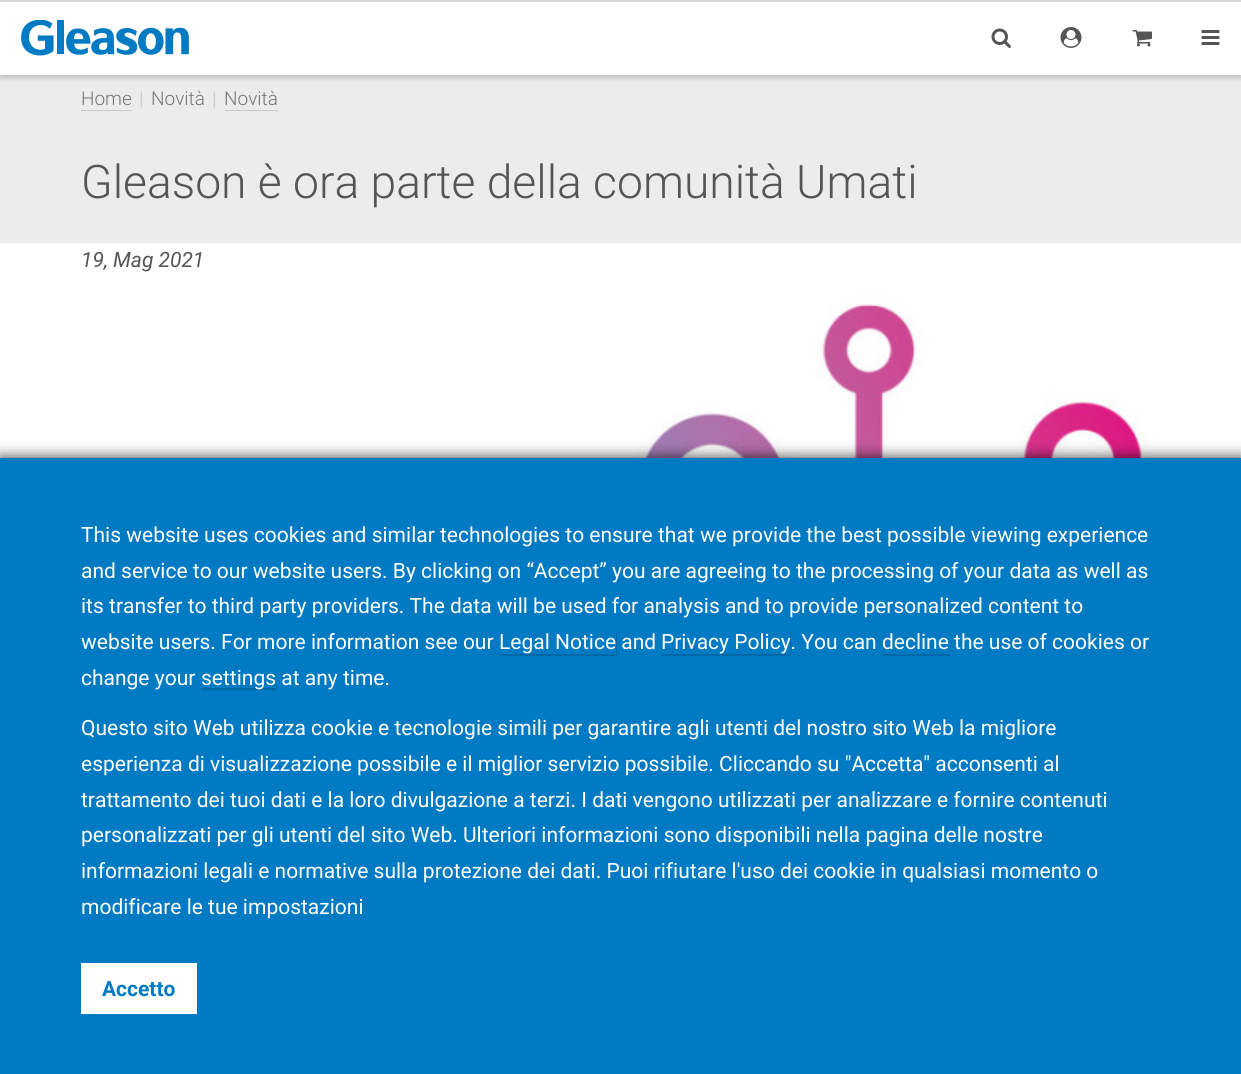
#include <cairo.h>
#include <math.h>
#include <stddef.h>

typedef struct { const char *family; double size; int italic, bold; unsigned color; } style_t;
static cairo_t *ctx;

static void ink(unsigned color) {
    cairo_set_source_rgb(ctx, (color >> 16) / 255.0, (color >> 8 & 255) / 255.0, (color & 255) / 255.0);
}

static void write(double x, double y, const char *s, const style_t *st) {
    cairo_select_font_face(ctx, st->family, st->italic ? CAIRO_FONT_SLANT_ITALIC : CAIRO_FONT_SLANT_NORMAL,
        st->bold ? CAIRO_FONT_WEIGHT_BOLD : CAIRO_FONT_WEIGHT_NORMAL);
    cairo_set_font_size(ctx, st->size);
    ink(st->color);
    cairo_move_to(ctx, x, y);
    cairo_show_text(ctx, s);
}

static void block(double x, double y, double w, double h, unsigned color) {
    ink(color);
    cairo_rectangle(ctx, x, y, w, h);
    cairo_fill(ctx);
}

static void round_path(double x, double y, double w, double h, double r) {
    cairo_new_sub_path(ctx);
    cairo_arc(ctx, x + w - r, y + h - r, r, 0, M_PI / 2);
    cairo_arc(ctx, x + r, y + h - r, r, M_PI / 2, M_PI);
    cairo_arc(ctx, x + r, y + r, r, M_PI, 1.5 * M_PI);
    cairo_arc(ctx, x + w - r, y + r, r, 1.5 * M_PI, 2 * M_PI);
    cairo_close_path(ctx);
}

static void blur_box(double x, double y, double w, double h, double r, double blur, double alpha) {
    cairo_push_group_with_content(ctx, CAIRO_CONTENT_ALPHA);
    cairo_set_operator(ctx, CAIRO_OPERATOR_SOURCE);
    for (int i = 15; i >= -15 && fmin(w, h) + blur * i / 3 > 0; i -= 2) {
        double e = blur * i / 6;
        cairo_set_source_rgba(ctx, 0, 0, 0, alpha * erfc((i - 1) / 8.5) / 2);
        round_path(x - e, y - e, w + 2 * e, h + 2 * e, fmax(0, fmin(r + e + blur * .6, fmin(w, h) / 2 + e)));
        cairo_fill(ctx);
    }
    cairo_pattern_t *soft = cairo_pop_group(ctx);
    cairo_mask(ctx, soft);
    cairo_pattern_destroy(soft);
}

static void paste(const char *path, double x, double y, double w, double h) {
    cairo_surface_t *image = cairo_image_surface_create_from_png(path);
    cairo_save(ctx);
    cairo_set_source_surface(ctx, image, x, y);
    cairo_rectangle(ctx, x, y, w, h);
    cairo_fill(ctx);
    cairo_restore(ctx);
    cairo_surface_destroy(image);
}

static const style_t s1 = {"Roboto Light", 19, 0, 0, 0x757575};
static const style_t s2 = {"Roboto", 19, 0, 0, 0xcccccc};
static const style_t s3 = {"Roboto Light", 46.25, 0, 0, 0x555555};
static const style_t s4 = {"Roboto", 21, 1, 0, 0x555555};
static const style_t s5 = {"Roboto", 21, 0, 0, 0xffffff};
static const style_t s6 = {"Roboto", 21, 0, 1, 0x007ac3};

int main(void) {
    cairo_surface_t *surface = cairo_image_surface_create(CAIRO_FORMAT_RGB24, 1241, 1074);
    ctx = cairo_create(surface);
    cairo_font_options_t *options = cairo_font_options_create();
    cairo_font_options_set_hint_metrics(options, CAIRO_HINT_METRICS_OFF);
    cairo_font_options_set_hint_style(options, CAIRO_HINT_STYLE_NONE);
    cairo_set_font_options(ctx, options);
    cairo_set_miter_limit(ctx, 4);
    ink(0xffffff);
    cairo_paint(ctx);
    block(0, 75, 1241, 168, 0xececec);
    cairo_save(ctx);
    cairo_rectangle(ctx, 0, 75, 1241, 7);
    cairo_clip(ctx);
    ink(0x000000);
    blur_box(0, 3, 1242, 75, 0, 3, 0.2);
    cairo_restore(ctx);
    block(0, 0, 1241, 2, 0xd9d9d9);
    paste("pic1.png", 21, 20, 168, 36);
    paste("pic2.png", 991, 28, 20, 20);
    paste("pic3.png", 1060, 27, 22, 21);
    paste("pic4.png", 1132, 30, 20, 17);
    paste("pic5.png", 1201, 30, 19, 15);
    write(81, 105, "Home", &s1);
    block(81, 110, 51, 1, 0xc9c9c9);
    write(139, 105, "|", &s2);
    write(151, 105, "Novità", &s1);
    write(212, 105, "|", &s2);
    write(224, 105, "Novità", &s1);
    ink(0xc9c9c9);
    cairo_new_path(ctx);
    cairo_move_to(ctx, 225, 110);
    cairo_line_to(ctx, 225, 111);
    cairo_line_to(ctx, 278, 111);
    cairo_line_to(ctx, 278, 89);
    cairo_line_to(ctx, 278, 110);
    cairo_close_path(ctx);
    cairo_fill(ctx);
    write(81, 198, "Gleason è ora parte della comunità Umati", &s3);
    write(81, 267, "19, Mag 2021", &s4);
    paste("pic6.png", 96, 294, 1050, 164);
    ink(0x000000);
    blur_box(0, 458, 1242, 616, 0, 7.5, 0.8);
    block(0, 458, 1241, 616, 0x007ac3);
    write(81, 542, "This website uses cookies and similar technologies to ensure that we provide the best possible viewing experience", &s5);
    write(81, 578, "and service to our website users. By clicking on “Accept” you are agreeing to the processing of your data as well as", &s5);
    write(81, 613, "its transfer to third party providers. The data will be used for analysis and to provide personalized content to", &s5);
    write(81, 649, "website users. For more information see our", &s5);
    ink(0x0068a6);
    cairo_new_path(ctx);
    cairo_move_to(ctx, 500, 654);
    cairo_line_to(ctx, 500, 656);
    cairo_line_to(ctx, 617, 656);
    cairo_line_to(ctx, 617, 632);
    cairo_line_to(ctx, 616, 632);
    cairo_line_to(ctx, 616, 654);
    cairo_close_path(ctx);
    cairo_fill(ctx);
    write(499, 649, "Legal Notice and", &s5);
    ink(0x0068a6);
    cairo_new_path(ctx);
    cairo_move_to(ctx, 662, 654);
    cairo_line_to(ctx, 662, 656);
    cairo_line_to(ctx, 791, 656);
    cairo_line_to(ctx, 791, 632);
    cairo_line_to(ctx, 790, 632);
    cairo_line_to(ctx, 790, 654);
    cairo_close_path(ctx);
    cairo_fill(ctx);
    write(661, 649, "Privacy Policy. You can decline the use of cookies or", &s5);
    ink(0x0068a6);
    cairo_new_path(ctx);
    cairo_move_to(ctx, 882, 654);
    cairo_line_to(ctx, 882, 656);
    cairo_line_to(ctx, 950, 656);
    cairo_line_to(ctx, 950, 632);
    cairo_line_to(ctx, 950, 654);
    cairo_close_path(ctx);
    cairo_fill(ctx);
    write(81, 685, "change your", &s5);
    block(201, 688, 75, 2, 0x0068a6);
    write(201, 685, "settings at any time.", &s5);
    write(81, 735, "Questo sito Web utilizza cookie e tecnologie simili per garantire agli utenti del nostro sito Web la migliore", &s5);
    write(81, 771, "esperienza di visualizzazione possibile e il miglior servizio possibile. Cliccando su \"Accetta\" acconsenti al", &s5);
    write(81, 807, "trattamento dei tuoi dati e la loro divulgazione a terzi. I dati vengono utilizzati per analizzare e fornire contenuti", &s5);
    write(81, 842, "personalizzati per gli utenti del sito Web. Ulteriori informazioni sono disponibili nella pagina delle nostre", &s5);
    write(81, 878, "informazioni legali e normative sulla protezione dei dati. Puoi rifiutare l'uso dei cookie in qualsiasi momento o", &s5);
    write(81, 914, "modificare le tue impostazioni", &s5);
    block(81, 963, 116, 51, 0xffffff);
    write(102, 996, "Accetto", &s6);
    cairo_surface_write_to_png(surface, "screenshot.png");
    cairo_font_options_destroy(options);
    cairo_destroy(ctx);
    cairo_surface_destroy(surface);
    return 0;
}
